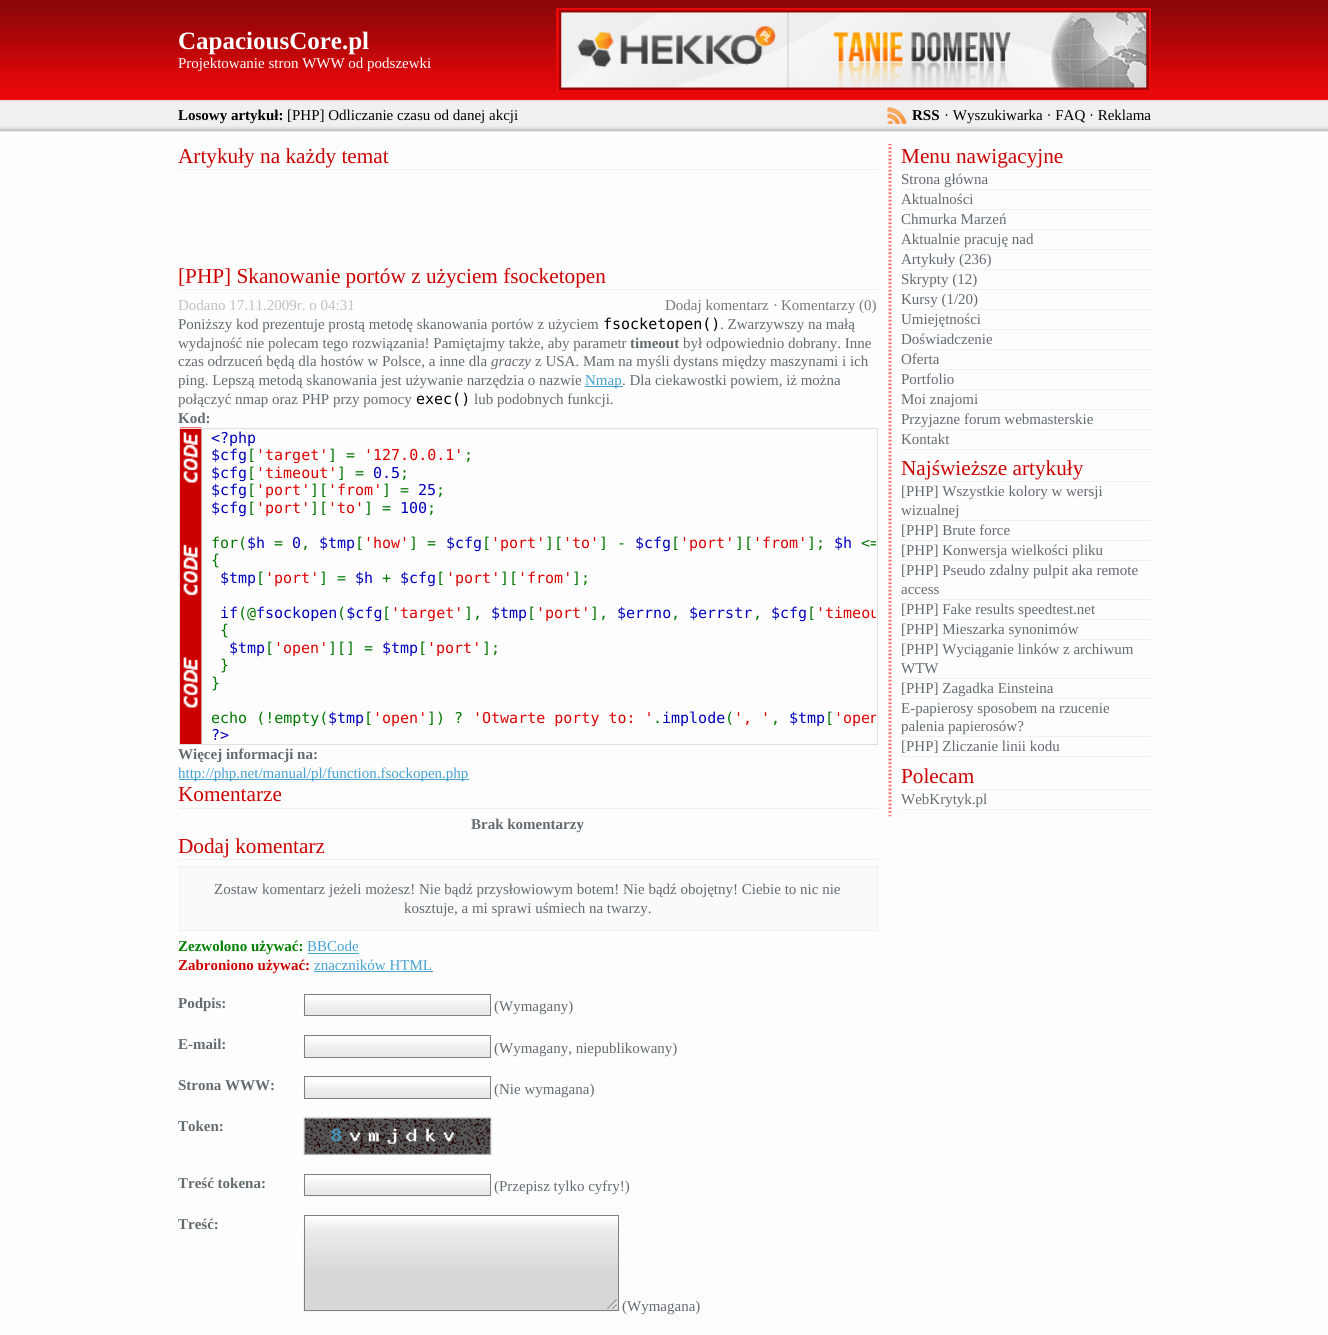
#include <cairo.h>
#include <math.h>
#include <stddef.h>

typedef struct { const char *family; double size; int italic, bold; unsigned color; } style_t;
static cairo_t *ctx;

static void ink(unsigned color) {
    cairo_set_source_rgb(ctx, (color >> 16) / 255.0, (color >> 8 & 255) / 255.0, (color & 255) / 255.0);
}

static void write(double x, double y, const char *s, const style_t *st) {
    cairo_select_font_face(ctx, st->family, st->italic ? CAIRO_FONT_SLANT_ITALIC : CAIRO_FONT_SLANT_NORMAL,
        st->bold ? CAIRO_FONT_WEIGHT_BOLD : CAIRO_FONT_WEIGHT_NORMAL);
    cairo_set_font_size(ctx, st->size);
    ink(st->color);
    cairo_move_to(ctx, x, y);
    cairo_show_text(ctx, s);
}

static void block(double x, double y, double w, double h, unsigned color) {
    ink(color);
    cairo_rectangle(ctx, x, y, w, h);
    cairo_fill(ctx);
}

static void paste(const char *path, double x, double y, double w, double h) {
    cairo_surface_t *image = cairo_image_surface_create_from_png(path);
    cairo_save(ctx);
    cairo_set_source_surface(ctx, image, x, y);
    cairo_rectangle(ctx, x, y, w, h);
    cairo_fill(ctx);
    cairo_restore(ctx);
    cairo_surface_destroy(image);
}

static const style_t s1 = {"Liberation Serif", 25, 0, 1, 0xffffff};
static const style_t s2 = {"Liberation Serif", 15, 0, 0, 0xffffff};
static const style_t s3 = {"Liberation Serif", 15, 0, 1, 0x000000};
static const style_t s4 = {"Liberation Serif", 15, 0, 0, 0x000000};
static const style_t s5 = {"Liberation Serif", 21.25, 0, 0, 0xcd0000};
static const style_t s6 = {"Liberation Serif", 15, 0, 0, 0xc0c0c0};
static const style_t s7 = {"Liberation Serif", 15, 0, 0, 0x787878};
static const style_t s8 = {"Liberation Serif", 15, 0, 0, 0x626b70};
static const style_t s9 = {"DejaVu Sans Mono", 15, 0, 0, 0x000000};
static const style_t s10 = {"Liberation Serif", 15, 0, 1, 0x626b70};
static const style_t s11 = {"Liberation Serif", 15, 1, 0, 0x626b70};
static const style_t s12 = {"Liberation Serif", 15, 0, 0, 0x44a1d0};
static const style_t s13 = {"DejaVu Sans Mono", 15, 0, 0, 0x0000bb};
static const style_t s14 = {"DejaVu Sans Mono", 15, 0, 0, 0x007700};
static const style_t s15 = {"DejaVu Sans Mono", 15, 0, 0, 0xdd0000};
static const style_t s16 = {"Liberation Serif", 15, 0, 1, 0x008000};
static const style_t s17 = {"Liberation Serif", 15, 0, 1, 0xcd0000};

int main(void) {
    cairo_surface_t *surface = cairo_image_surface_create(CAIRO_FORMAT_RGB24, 1328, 1335);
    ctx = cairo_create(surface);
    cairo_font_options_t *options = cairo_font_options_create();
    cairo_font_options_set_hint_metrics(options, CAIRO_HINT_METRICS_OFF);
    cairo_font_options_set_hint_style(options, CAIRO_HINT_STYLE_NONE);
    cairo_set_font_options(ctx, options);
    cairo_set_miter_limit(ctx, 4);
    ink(0xfdfdfd);
    cairo_paint(ctx);
    block(0, 0, 1328, 10, 0x8e0608);
    paste("pic1.png", 0, 10, 1328, 122);
    write(178, 49, "CapaciousCore.pl", &s1);
    cairo_rectangle(ctx, 557.5, 9.5, 592, 82);
    ink(0xea080a);
    cairo_set_line_width(ctx, 3);
    cairo_stroke(ctx);
    cairo_rectangle(ctx, 560.5, 11.5, 587, 77);
    ink(0x9b0707);
    cairo_stroke(ctx);
    paste("pic2.png", 561, 12, 586, 76);
    write(178, 68, "Projektowanie stron WWW od podszewki", &s2);
    write(178, 120, "Losowy artykuł:", &s3);
    write(287, 120, "[PHP] Odliczanie czasu od danej akcji", &s4);
    paste("pic3.png", 887, 107, 20, 17);
    write(912, 120, "RSS", &s3);
    write(944, 120, "· Wyszukiwarka · FAQ · Reklama", &s4);
    block(179, 169, 699, 1, 0xeef1f2);
    write(178, 163, "Artykuły na każdy temat", &s5);
    block(179, 289, 699, 1, 0xeef1f2);
    write(178, 283, "[PHP] Skanowanie portów z użyciem fsocketopen", &s5);
    write(178, 310, "Dodano 17.11.2009r. o 04:31", &s6);
    write(665, 310, "Dodaj komentarz", &s7);
    write(773, 310, "·", &s8);
    write(781, 310, "Komentarzy (0)", &s7);
    write(178, 329, "Poniższy kod prezentuje prostą metodę skanowania portów z użyciem", &s8);
    write(603, 329, "fsocketopen()", &s9);
    write(720, 329, ". Zwarzywszy na małą", &s8);
    write(178, 348, "wydajność nie polecam tego rozwiązania! Pamiętajmy także, aby parametr", &s8);
    write(630, 348, "timeout", &s10);
    write(683, 348, "był odpowiednio dobrany. Inne", &s8);
    write(178, 366, "czas odrzuceń będą dla hostów w Polsce, a inne dla", &s8);
    write(491, 366, "graczy", &s11);
    write(535, 366, "z USA. Mam na myśli dystans między maszynami i ich", &s8);
    write(178, 385, "ping. Lepszą metodą skanowania jest używanie narzędzia o nazwie", &s8);
    block(585, 386, 38, 1, 0x44a1d0);
    write(585, 385, "Nmap", &s12);
    write(622, 385, ". Dla ciekawostki powiem, iż można", &s8);
    write(178, 404, "połączyć nmap oraz PHP przy pomocy", &s8);
    write(416, 404, "exec()", &s9);
    write(474, 404, "lub podobnych funkcji.", &s8);
    write(178, 423, "Kod:", &s10);
    paste("pic4.png", 180, 427, 23, 317);
    cairo_rectangle(ctx, 179.5, 428.5, 698, 316);
    ink(0xe0e0e0);
    cairo_set_line_width(ctx, 1);
    cairo_stroke(ctx);
    write(211, 443, "<?php", &s13);
    write(211, 460, "$cfg", &s13);
    write(247, 460, "[", &s14);
    write(256, 460, "'target'", &s15);
    write(328, 460, "] =", &s14);
    write(364, 460, "'127.0.0.1'", &s15);
    write(464, 460, ";", &s14);
    write(211, 478, "$cfg", &s13);
    write(247, 478, "[", &s14);
    write(256, 478, "'timeout'", &s15);
    write(337, 478, "] =", &s14);
    write(373, 478, "0.5", &s13);
    write(400, 478, ";", &s14);
    write(211, 495, "$cfg", &s13);
    write(247, 495, "[", &s14);
    write(256, 495, "'port'", &s15);
    write(310, 495, "][", &s14);
    write(328, 495, "'from'", &s15);
    write(382, 495, "] =", &s14);
    write(418, 495, "25", &s13);
    write(436, 495, ";", &s14);
    write(211, 513, "$cfg", &s13);
    write(247, 513, "[", &s14);
    write(256, 513, "'port'", &s15);
    write(310, 513, "][", &s14);
    write(328, 513, "'to'", &s15);
    write(364, 513, "] =", &s14);
    write(400, 513, "100", &s13);
    write(427, 513, ";", &s14);
    write(211, 548, "for(", &s14);
    write(247, 548, "$h", &s13);
    write(274, 548, "=", &s14);
    write(292, 548, "0", &s13);
    write(319, 548, "$tmp", &s13);
    write(355, 548, "[", &s14);
    write(364, 548, "'how'", &s15);
    write(409, 548, "] =", &s14);
    write(446, 548, "$cfg", &s13);
    write(482, 548, "[", &s14);
    write(491, 548, "'port'", &s15);
    write(545, 548, "][", &s14);
    write(563, 548, "'to'", &s15);
    write(599, 548, "] -", &s14);
    write(635, 548, "$cfg", &s13);
    write(671, 548, "[", &s14);
    write(680, 548, "'port'", &s15);
    write(735, 548, "][", &s14);
    write(753, 548, "'from'", &s15);
    write(807, 548, "];", &s14);
    write(834, 548, "$h", &s13);
    cairo_save(ctx);
    cairo_rectangle(ctx, 180, 429, 696, 315);
    cairo_clip(ctx);
    write(861, 548, "<=", &s14);
    cairo_restore(ctx);
    write(301, 548, ",", &s14);
    write(211, 565, "{", &s14);
    write(220, 583, "$tmp", &s13);
    write(256, 583, "[", &s14);
    write(265, 583, "'port'", &s15);
    write(319, 583, "] =", &s14);
    write(355, 583, "$h", &s13);
    write(382, 583, "+", &s14);
    write(400, 583, "$cfg", &s13);
    write(436, 583, "[", &s14);
    write(446, 583, "'port'", &s15);
    write(500, 583, "][", &s14);
    write(518, 583, "'from'", &s15);
    write(572, 583, "];", &s14);
    write(220, 618, "if", &s13);
    write(238, 618, "(@", &s14);
    write(256, 618, "fsockopen $cfg", &s13);
    write(337, 618, "(", &s14);
    write(382, 618, "[", &s14);
    write(391, 618, "'target'", &s15);
    write(464, 618, "],", &s14);
    write(491, 618, "$tmp", &s13);
    write(527, 618, "[", &s14);
    write(536, 618, "'port'", &s15);
    write(590, 618, "],", &s14);
    write(617, 618, "$errno", &s13);
    write(671, 618, ",", &s14);
    write(689, 618, "$errstr", &s13);
    write(753, 618, ",", &s14);
    write(771, 618, "$cfg", &s13);
    write(807, 618, "[", &s14);
    cairo_save(ctx);
    cairo_rectangle(ctx, 180, 429, 696, 315);
    cairo_clip(ctx);
    write(816, 618, "'timeou", &s15);
    cairo_restore(ctx);
    write(220, 635, "{", &s14);
    write(229, 653, "$tmp", &s13);
    write(265, 653, "[", &s14);
    write(274, 653, "'open'", &s15);
    write(328, 653, "][] =", &s14);
    write(382, 653, "$tmp", &s13);
    write(418, 653, "[", &s14);
    write(427, 653, "'port'", &s15);
    write(482, 653, "];", &s14);
    write(220, 670, "}", &s14);
    write(211, 688, "}", &s14);
    write(211, 723, "echo (!empty(", &s14);
    write(328, 723, "$tmp", &s13);
    write(364, 723, "[", &s14);
    write(373, 723, "'open'", &s15);
    write(427, 723, "]) ?", &s14);
    write(473, 723, "'Otwarte porty to: '", &s15);
    write(653, 723, ".", &s14);
    write(662, 723, "implode", &s13);
    write(725, 723, "(", &s14);
    write(734, 723, "', '", &s15);
    write(771, 723, ",", &s14);
    write(789, 723, "$tmp", &s13);
    write(825, 723, "[", &s14);
    cairo_save(ctx);
    cairo_rectangle(ctx, 180, 429, 696, 315);
    cairo_clip(ctx);
    write(834, 723, "'open", &s15);
    cairo_restore(ctx);
    write(211, 740, "?>", &s13);
    write(178, 759, "Więcej informacji na:", &s10);
    block(179, 779, 290, 1, 0x44a1d0);
    write(178, 778, "http://php.net/manual/pl/function.fsockopen.php", &s12);
    block(179, 808, 699, 1, 0xeef1f2);
    write(178, 801, "Komentarze", &s5);
    write(471, 829, "Brak komentarzy", &s10);
    block(179, 859, 699, 1, 0xeef1f2);
    write(178, 853, "Dodaj komentarz", &s5);
    ink(0xfafafa);
    cairo_rectangle(ctx, 179.5, 866.5, 698, 64);
    cairo_fill_preserve(ctx);
    ink(0xeef1f2);
    cairo_stroke(ctx);
    write(214, 894, "Zostaw komentarz jeżeli możesz! Nie bądź przysłowiowym botem! Nie bądź obojętny! Ciebie to nic nie", &s8);
    write(404, 913, "kosztuje, a mi sprawi uśmiech na twarzy.", &s8);
    write(178, 951, "Zezwolono używać:", &s16);
    write(307, 951, "BBCode", &s12);
    block(308, 953, 51, 1, 0x44a1d0);
    write(178, 970, "Zabroniono używać:", &s17);
    write(314, 970, "znaczników HTML", &s12);
    block(314, 971, 119, 1, 0x44a1d0);
    write(178, 1008, "Podpis:", &s10);
    paste("pic5.png", 303, 1000, 189, 17);
    cairo_rectangle(ctx, 304.5, 994.5, 186, 21);
    ink(0x808080);
    cairo_stroke(ctx);
    write(494, 1011, "(Wymagany)", &s8);
    write(178, 1049, "E-mail:", &s10);
    paste("pic6.png", 303, 1041, 189, 17);
    cairo_rectangle(ctx, 304.5, 1035.5, 186, 22);
    ink(0x808080);
    cairo_stroke(ctx);
    write(494, 1053, "(Wymagany, niepublikowany)", &s8);
    write(178, 1090, "Strona WWW:", &s10);
    paste("pic7.png", 303, 1083, 189, 16);
    cairo_rectangle(ctx, 304.5, 1076.5, 186, 22);
    ink(0x808080);
    cairo_stroke(ctx);
    write(494, 1094, "(Nie wymagana)", &s8);
    write(178, 1131, "Token:", &s10);
    paste("pic8.png", 303, 1117, 189, 38);
    write(178, 1188, "Treść tokena:", &s10);
    paste("pic5.png", 303, 1180, 189, 17);
    cairo_rectangle(ctx, 304.5, 1174.5, 186, 21);
    ink(0x808080);
    cairo_stroke(ctx);
    write(494, 1191, "(Przepisz tylko cyfry!)", &s8);
    write(178, 1229, "Treść:", &s10);
    paste("pic9.png", 303, 1216, 316, 96);
    cairo_rectangle(ctx, 304.5, 1215.5, 314, 95);
    ink(0x808080);
    cairo_stroke(ctx);
    write(622, 1311, "(Wymagana)", &s8);
    paste("pic10.png", 888, 144, 4, 673);
    block(901, 169, 250, 1, 0xeef1f2);
    write(901, 163, "Menu nawigacyjne", &s5);
    block(901, 189, 250, 1, 0xeef1f2);
    write(901, 184, "Strona główna", &s8);
    block(901, 209, 250, 1, 0xeef1f2);
    write(901, 204, "Aktualności", &s8);
    block(901, 229, 250, 1, 0xeef1f2);
    write(901, 224, "Chmurka Marzeń", &s8);
    block(901, 249, 250, 1, 0xeef1f2);
    write(901, 244, "Aktualnie pracuję nad", &s8);
    block(901, 269, 250, 1, 0xeef1f2);
    write(901, 264, "Artykuły (236)", &s8);
    block(901, 289, 250, 1, 0xeef1f2);
    write(901, 284, "Skrypty (12)", &s8);
    block(901, 309, 250, 1, 0xeef1f2);
    write(901, 304, "Kursy (1/20)", &s8);
    block(901, 329, 250, 1, 0xeef1f2);
    write(901, 324, "Umiejętności", &s8);
    block(901, 349, 250, 1, 0xeef1f2);
    write(901, 344, "Doświadczenie", &s8);
    block(901, 369, 250, 1, 0xeef1f2);
    write(901, 364, "Oferta", &s8);
    block(901, 389, 250, 1, 0xeef1f2);
    write(901, 384, "Portfolio", &s8);
    block(901, 409, 250, 1, 0xeef1f2);
    write(901, 404, "Moi znajomi", &s8);
    block(901, 429, 250, 1, 0xeef1f2);
    write(901, 424, "Przyjazne forum webmasterskie", &s8);
    block(901, 449, 250, 1, 0xeef1f2);
    write(901, 444, "Kontakt", &s8);
    block(901, 481, 250, 1, 0xeef1f2);
    write(901, 475, "Najświeższe artykuły", &s5);
    block(901, 520, 250, 1, 0xeef1f2);
    write(901, 496, "[PHP] Wszystkie kolory w wersji", &s8);
    write(901, 515, "wizualnej", &s8);
    block(901, 540, 250, 1, 0xeef1f2);
    write(901, 535, "[PHP] Brute force", &s8);
    block(901, 560, 250, 1, 0xeef1f2);
    write(901, 555, "[PHP] Konwersja wielkości pliku", &s8);
    block(901, 599, 250, 1, 0xeef1f2);
    write(901, 575, "[PHP] Pseudo zdalny pulpit aka remote", &s8);
    write(901, 594, "access", &s8);
    block(901, 619, 250, 1, 0xeef1f2);
    write(901, 614, "[PHP] Fake results speedtest.net", &s8);
    block(901, 639, 250, 1, 0xeef1f2);
    write(901, 634, "[PHP] Mieszarka synonimów", &s8);
    block(901, 678, 250, 1, 0xeef1f2);
    write(901, 654, "[PHP] Wyciąganie linków z archiwum", &s8);
    write(901, 673, "WTW", &s8);
    block(901, 698, 250, 1, 0xeef1f2);
    write(901, 693, "[PHP] Zagadka Einsteina", &s8);
    block(901, 736, 250, 1, 0xeef1f2);
    write(901, 713, "E-papierosy sposobem na rzucenie", &s8);
    write(901, 731, "palenia papierosów?", &s8);
    block(901, 756, 250, 1, 0xeef1f2);
    write(901, 751, "[PHP] Zliczanie linii kodu", &s8);
    block(901, 789, 250, 1, 0xeef1f2);
    write(901, 783, "Polecam", &s5);
    block(901, 809, 250, 1, 0xeef1f2);
    write(901, 804, "WebKrytyk.pl", &s8);
    cairo_surface_write_to_png(surface, "screenshot.png");
    cairo_font_options_destroy(options);
    cairo_destroy(ctx);
    cairo_surface_destroy(surface);
    return 0;
}
